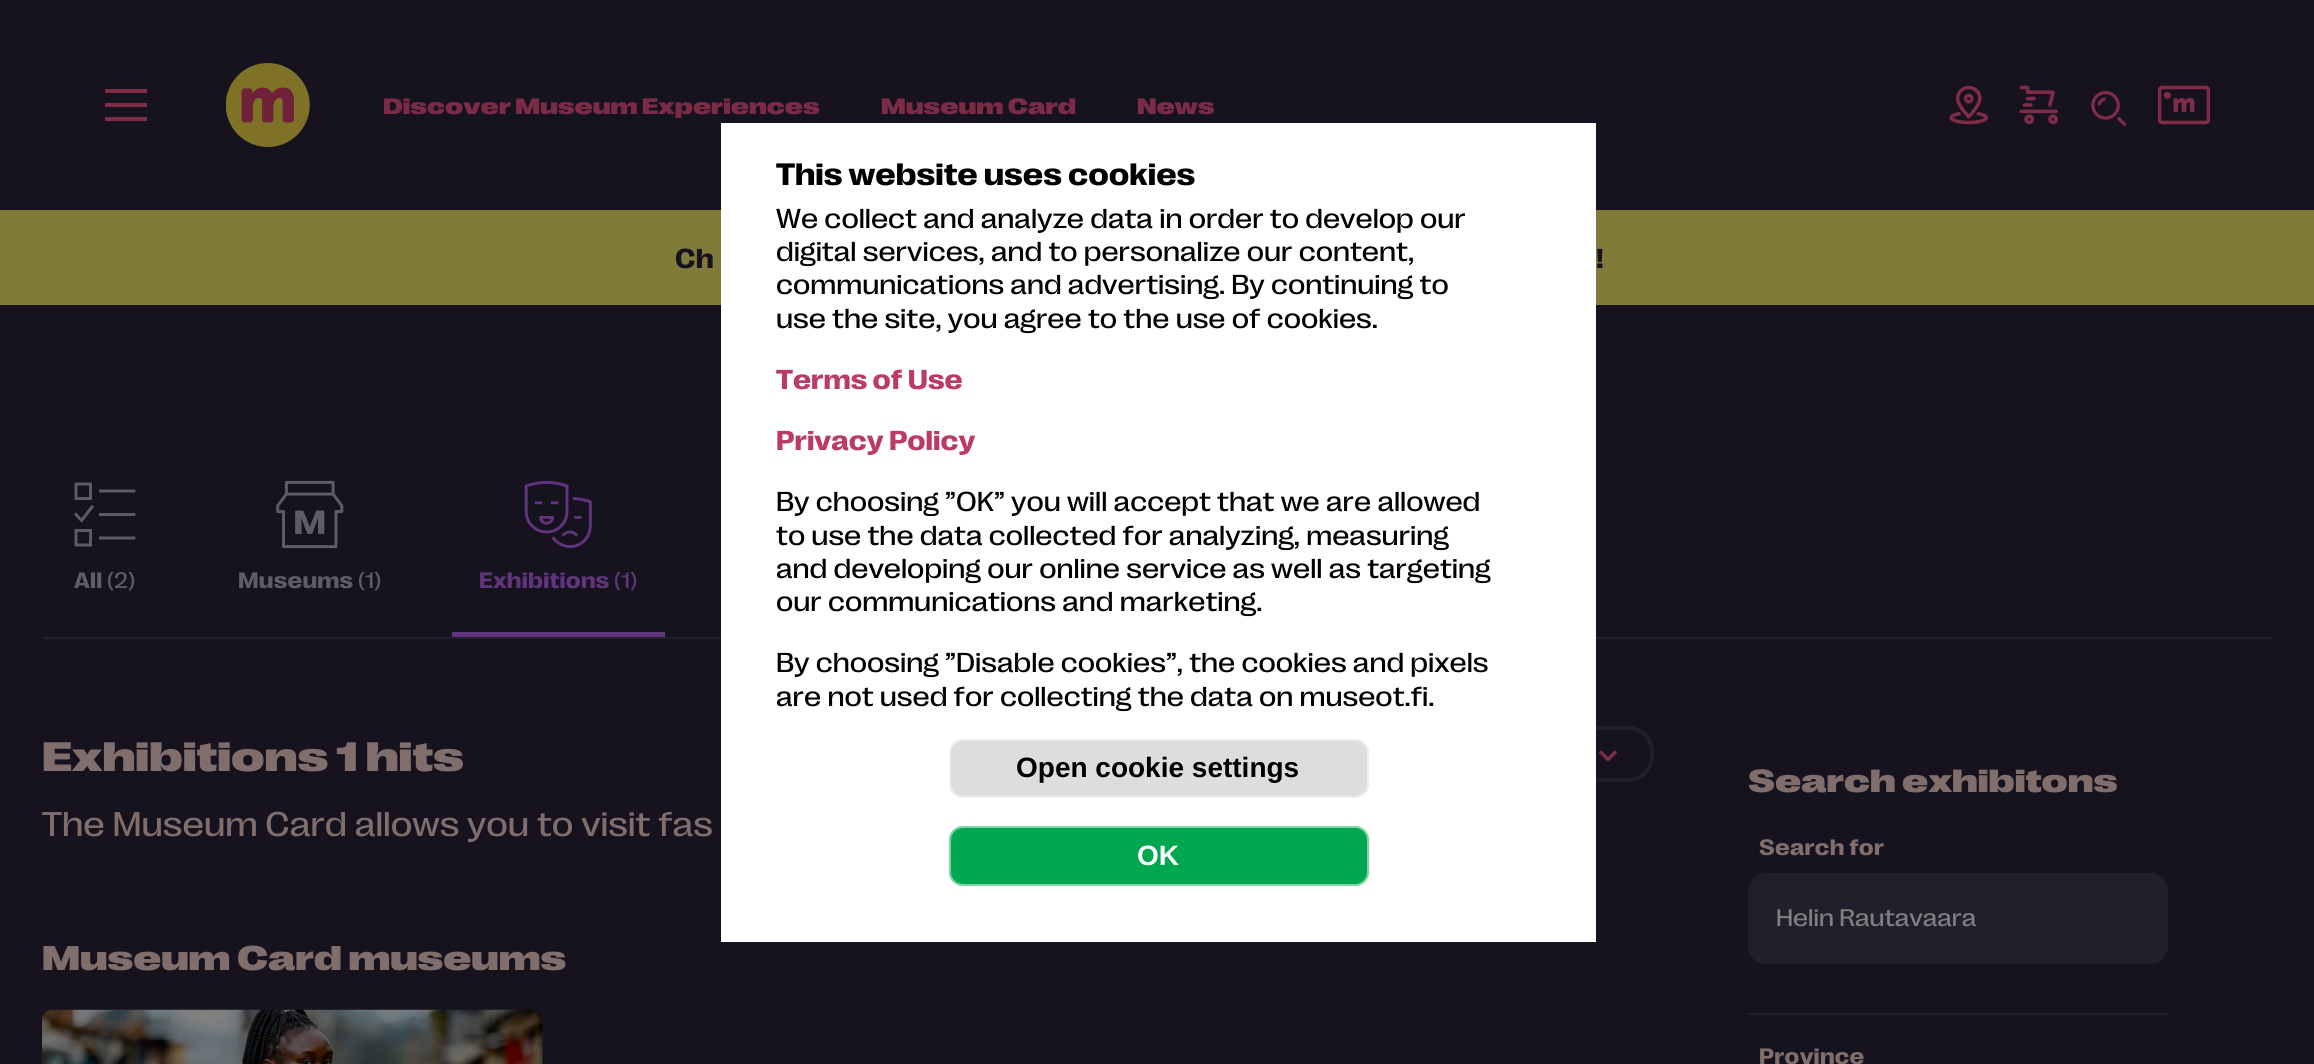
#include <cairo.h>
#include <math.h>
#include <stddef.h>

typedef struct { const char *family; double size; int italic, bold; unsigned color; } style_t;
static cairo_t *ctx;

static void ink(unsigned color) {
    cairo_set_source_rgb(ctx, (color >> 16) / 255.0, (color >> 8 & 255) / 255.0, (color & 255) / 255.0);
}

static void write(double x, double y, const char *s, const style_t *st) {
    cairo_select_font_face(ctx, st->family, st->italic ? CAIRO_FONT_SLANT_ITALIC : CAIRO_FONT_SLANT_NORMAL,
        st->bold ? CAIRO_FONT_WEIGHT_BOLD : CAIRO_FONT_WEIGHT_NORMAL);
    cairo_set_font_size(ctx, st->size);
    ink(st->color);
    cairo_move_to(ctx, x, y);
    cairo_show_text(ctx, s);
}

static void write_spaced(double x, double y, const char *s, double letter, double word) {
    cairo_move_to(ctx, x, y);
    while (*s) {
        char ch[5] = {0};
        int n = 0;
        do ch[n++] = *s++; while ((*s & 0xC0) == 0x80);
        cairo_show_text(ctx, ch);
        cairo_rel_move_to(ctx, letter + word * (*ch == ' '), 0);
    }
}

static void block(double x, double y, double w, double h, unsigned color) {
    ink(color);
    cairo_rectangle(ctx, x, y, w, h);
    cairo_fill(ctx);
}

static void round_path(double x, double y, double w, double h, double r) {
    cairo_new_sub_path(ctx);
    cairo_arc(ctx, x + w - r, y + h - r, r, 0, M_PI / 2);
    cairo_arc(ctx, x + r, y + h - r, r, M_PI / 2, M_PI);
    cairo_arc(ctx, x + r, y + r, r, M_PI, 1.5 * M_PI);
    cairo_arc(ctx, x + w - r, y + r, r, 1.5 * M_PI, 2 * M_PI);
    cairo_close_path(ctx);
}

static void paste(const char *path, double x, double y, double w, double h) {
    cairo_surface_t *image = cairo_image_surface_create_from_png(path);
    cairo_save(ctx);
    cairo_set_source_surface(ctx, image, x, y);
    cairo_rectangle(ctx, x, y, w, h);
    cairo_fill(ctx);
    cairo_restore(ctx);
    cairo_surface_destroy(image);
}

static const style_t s1 = {"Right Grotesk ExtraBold", 22.75, 0, 0, 0x7b2b45};
static const style_t s2 = {"Right Grotesk", 31.6, 0, 1, 0x000000};
static const style_t s3 = {"Right Grotesk", 28, 0, 0, 0x000000};
static const style_t s4 = {"Right Grotesk", 28, 0, 1, 0xba3b65};
static const style_t s5 = {"Liberation Sans", 28, 0, 1, 0x000000};
static const style_t s6 = {"Liberation Sans", 28, 0, 1, 0xffffff};
static const style_t s7 = {"Right Grotesk ExtraBold", 42, 0, 0, 0x806e6c};
static const style_t s8 = {"Right Grotesk", 35, 0, 0, 0x806e6c};
static const style_t s9 = {"Right Grotesk ExtraBold", 35, 0, 0, 0x806e6c};
static const style_t s10 = {"Right Grotesk ExtraBold", 32.75, 0, 0, 0x806e6c};
static const style_t s11 = {"Right Grotesk", 24.5, 0, 0, 0x808080};

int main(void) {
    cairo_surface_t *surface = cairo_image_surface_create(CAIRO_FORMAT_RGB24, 2314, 1064);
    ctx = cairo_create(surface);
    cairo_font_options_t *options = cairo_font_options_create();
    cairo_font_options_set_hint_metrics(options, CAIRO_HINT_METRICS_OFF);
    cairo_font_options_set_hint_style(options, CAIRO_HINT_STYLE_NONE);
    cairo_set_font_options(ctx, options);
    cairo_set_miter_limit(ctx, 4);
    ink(0x807b39);
    cairo_paint(ctx);
    block(0, 0, 2314, 210, 0x16131f);
    ink(0x802d48);
    cairo_new_path(ctx);
    cairo_move_to(ctx, 105, 89);
    cairo_line_to(ctx, 147, 89);
    cairo_line_to(ctx, 147, 93);
    cairo_line_to(ctx, 105, 93);
    cairo_close_path(ctx);
    cairo_move_to(ctx, 105, 103);
    cairo_line_to(ctx, 147, 103);
    cairo_line_to(ctx, 147, 107);
    cairo_line_to(ctx, 105, 107);
    cairo_close_path(ctx);
    cairo_move_to(ctx, 105, 117);
    cairo_line_to(ctx, 147, 117);
    cairo_line_to(ctx, 147, 121);
    cairo_line_to(ctx, 105, 121);
    cairo_close_path(ctx);
    cairo_fill(ctx);
    paste("pic1.png", 226, 63, 84, 84);
    write(383, 114, "Discover Museum Experiences", &s1);
    write(881, 114, "Museum Card", &s1);
    write(1137, 114, "News", &s1);
    paste("pic2.png", 1949, 85, 39, 40);
    paste("pic3.png", 2019, 85, 39, 40);
    paste("pic4.png", 2091, 91, 36, 35);
    paste("pic5.png", 2158, 85, 52, 40);
    block(0, 305, 2314, 759, 0x16131f);
    block(42, 637, 2231, 2, 0x221e2c);
    round_path(1180, 728, 472, 52, 24);
    cairo_set_line_width(ctx, 4);
    cairo_stroke(ctx);
    block(721, 123, 875, 819, 0xffffff);
    write(776, 185, "This website uses cookies", &s2);
    write(776, 228, "We collect and analyze data in order to develop our", &s3);
    write(776, 261, "digital services, and to personalize our content,", &s3);
    write(776, 294, "communications and advertising. By continuing to", &s3);
    write(776, 328, "use the site, you agree to the use of cookies.", &s3);
    write(776, 389, "Terms of Use", &s4);
    write(776, 450, "Privacy Policy", &s4);
    write(776, 511, "By choosing ”OK” you will accept that we are allowed", &s3);
    write(776, 545, "to use the data collected for analyzing, measuring", &s3);
    write(776, 578, "and developing our online service as well as targeting", &s3);
    write(776, 611, "our communications and marketing.", &s3);
    write(776, 672, "By choosing ”Disable cookies”, the cookies and pixels", &s3);
    write(776, 706, "are not used for collecting the data on museot.fi.", &s3);
    ink(0xdddddd);
    round_path(949, 739, 420, 59, 14);
    cairo_fill(ctx);
    round_path(950, 740, 418, 57, 13);
    cairo_set_source_rgba(ctx, 1, 1, 1, 0.5);
    cairo_set_line_width(ctx, 2);
    cairo_stroke(ctx);
    write(1016, 777, "Open cookie settings", &s5);
    ink(0x00a751);
    round_path(949, 826, 420, 60, 14);
    cairo_fill(ctx);
    round_path(950, 827, 418, 58, 13);
    cairo_set_source_rgba(ctx, 1, 1, 1, 0.5);
    cairo_stroke(ctx);
    write(1137, 865, "OK", &s6);
    cairo_select_font_face(ctx, "Right Grotesk", CAIRO_FONT_SLANT_NORMAL, CAIRO_FONT_WEIGHT_BOLD);
    ink(0x16131f);
    write_spaced(675, 268, "Ch", 0.25, 0);
    write_spaced(1596, 268, "!", 0.25, 0);
    cairo_new_path(ctx);
    cairo_move_to(ctx, 100.5, 491);
    cairo_line_to(ctx, 134, 491);
    cairo_move_to(ctx, 100.5, 514.5);
    cairo_line_to(ctx, 134, 514.5);
    cairo_move_to(ctx, 100.5, 538);
    cairo_line_to(ctx, 134, 538);
    cairo_move_to(ctx, 90.5, 484);
    cairo_line_to(ctx, 76, 484);
    cairo_line_to(ctx, 76, 498.5);
    cairo_line_to(ctx, 90.5, 498.5);
    cairo_close_path(ctx);
    cairo_move_to(ctx, 90.5, 530.5);
    cairo_line_to(ctx, 76, 530.5);
    cairo_line_to(ctx, 76, 545);
    cairo_line_to(ctx, 90.5, 545);
    cairo_close_path(ctx);
    cairo_move_to(ctx, 76, 514.5);
    cairo_line_to(ctx, 81.5, 520.5);
    cairo_line_to(ctx, 92, 507);
    ink(0x5c5e67);
    cairo_set_line_width(ctx, 2.9);
    cairo_set_line_cap(ctx, CAIRO_LINE_CAP_SQUARE);
    cairo_stroke(ctx);
    cairo_set_font_size(ctx, 22.75);
    write_spaced(74, 588, "All", 0.25, 0);
    cairo_select_font_face(ctx, "Right Grotesk", CAIRO_FONT_SLANT_NORMAL, CAIRO_FONT_WEIGHT_NORMAL);
    write_spaced(107, 588, "(2)", 0.25, 0);
    paste("pic6.png", 276, 480, 68, 69);
    cairo_select_font_face(ctx, "Right Grotesk", CAIRO_FONT_SLANT_NORMAL, CAIRO_FONT_WEIGHT_BOLD);
    write_spaced(238, 588, "Museums", 0.25, 0);
    cairo_select_font_face(ctx, "Right Grotesk", CAIRO_FONT_SLANT_NORMAL, CAIRO_FONT_WEIGHT_NORMAL);
    write_spaced(358, 588, "(1)", 0.25, 0);
    paste("pic7.png", 524, 481, 68, 67);
    cairo_select_font_face(ctx, "Right Grotesk", CAIRO_FONT_SLANT_NORMAL, CAIRO_FONT_WEIGHT_BOLD);
    ink(0x60357e);
    write_spaced(479, 588, "Exhibitions", 0.25, 0);
    cairo_select_font_face(ctx, "Right Grotesk", CAIRO_FONT_SLANT_NORMAL, CAIRO_FONT_WEIGHT_NORMAL);
    write_spaced(614, 588, "(1)", 0.25, 0);
    block(452, 632, 213, 5, 0x60357e);
    write(42, 771, "Exhibitions 1 hits", &s7);
    write(42, 836, "The Museum Card allows you to visit fas", &s8);
    cairo_new_path(ctx);
    cairo_move_to(ctx, 1615, 752.5);
    cairo_line_to(ctx, 1608, 759.5);
    cairo_line_to(ctx, 1601, 752.5);
    ink(0x802d48);
    cairo_set_line_width(ctx, 3.5);
    cairo_set_line_cap(ctx, CAIRO_LINE_CAP_ROUND);
    cairo_set_line_join(ctx, CAIRO_LINE_JOIN_ROUND);
    cairo_stroke(ctx);
    write(42, 970, "Museum Card museums", &s9);
    ink(0x221e2c);
    round_path(42, 1010, 501, 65, 11);
    cairo_fill(ctx);
    paste("pic8.png", 42, 1009, 501, 55);
    write(1748, 792, "Search exhibitons", &s10);
    block(1748, 1013, 420, 2, 0x221e2c);
    cairo_select_font_face(ctx, "Right Grotesk", CAIRO_FONT_SLANT_NORMAL, CAIRO_FONT_WEIGHT_BOLD);
    cairo_set_font_size(ctx, 22.75);
    ink(0x806e6c);
    write_spaced(1759, 855, "Search for", 0.25, 0);
    ink(0x221e2c);
    round_path(1750, 875, 416, 87, 16);
    cairo_fill_preserve(ctx);
    cairo_set_line_width(ctx, 4);
    cairo_set_line_cap(ctx, CAIRO_LINE_CAP_BUTT);
    cairo_set_line_join(ctx, CAIRO_LINE_JOIN_MITER);
    cairo_stroke(ctx);
    write(1776, 926, "Helin Rautavaara", &s11);
    cairo_select_font_face(ctx, "Right Grotesk", CAIRO_FONT_SLANT_NORMAL, CAIRO_FONT_WEIGHT_BOLD);
    cairo_set_font_size(ctx, 22.75);
    ink(0x806e6c);
    write_spaced(1759, 1064, "Province", 0.25, 0);
    cairo_surface_write_to_png(surface, "screenshot.png");
    cairo_font_options_destroy(options);
    cairo_destroy(ctx);
    cairo_surface_destroy(surface);
    return 0;
}
